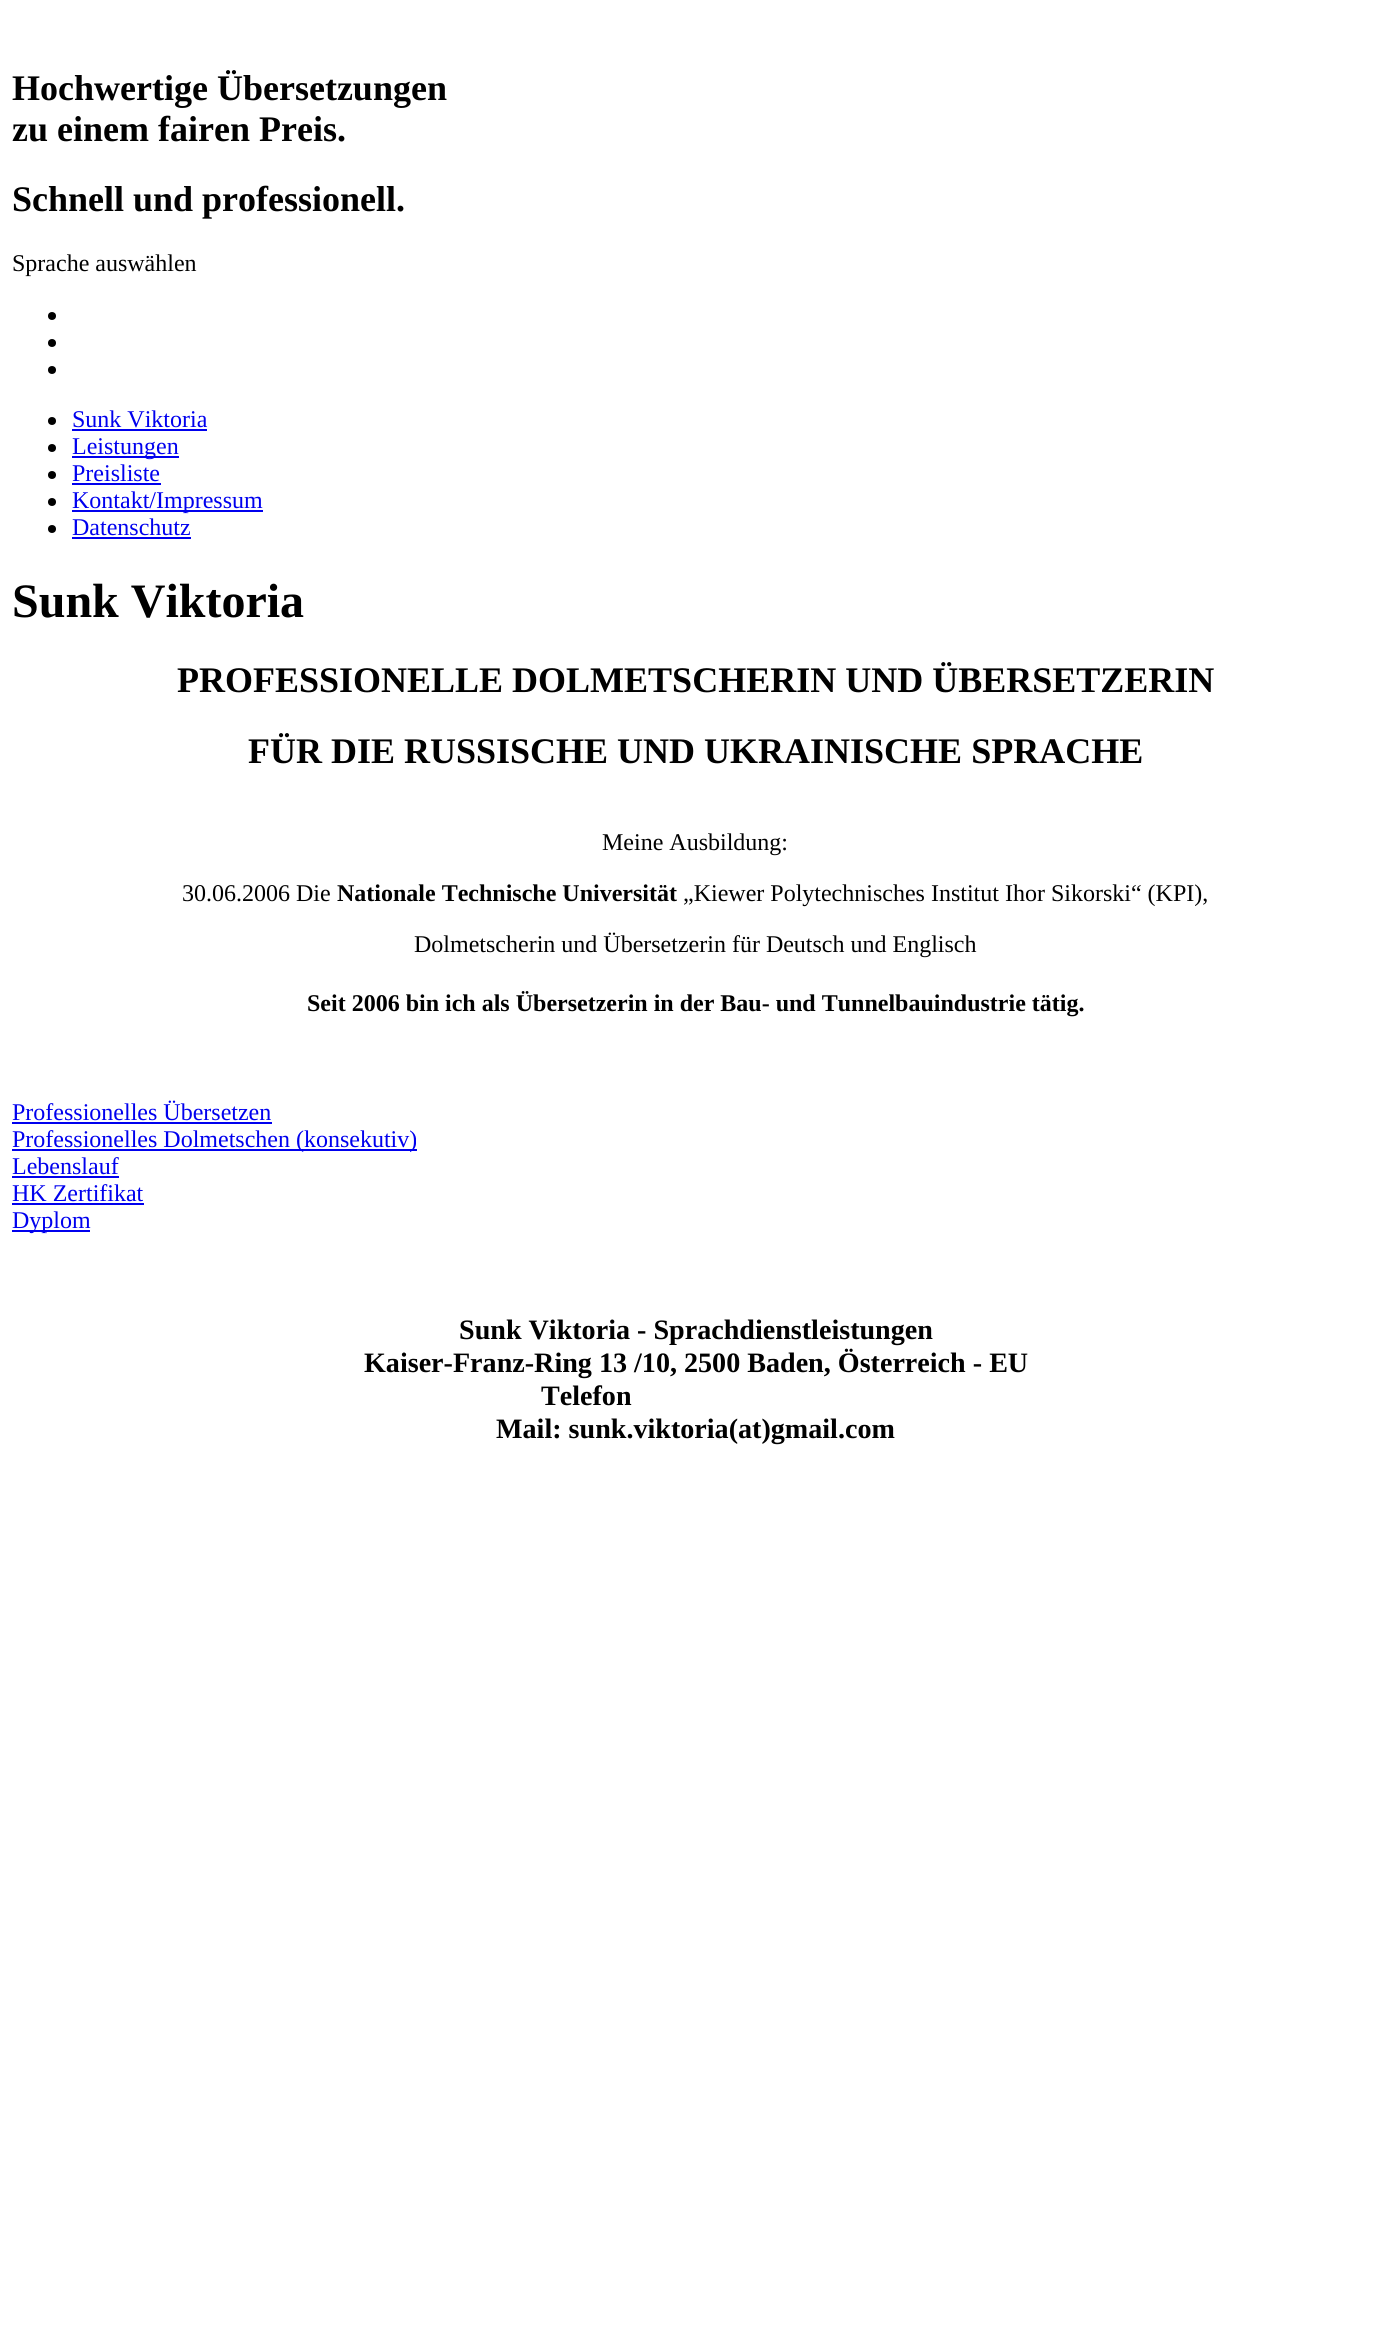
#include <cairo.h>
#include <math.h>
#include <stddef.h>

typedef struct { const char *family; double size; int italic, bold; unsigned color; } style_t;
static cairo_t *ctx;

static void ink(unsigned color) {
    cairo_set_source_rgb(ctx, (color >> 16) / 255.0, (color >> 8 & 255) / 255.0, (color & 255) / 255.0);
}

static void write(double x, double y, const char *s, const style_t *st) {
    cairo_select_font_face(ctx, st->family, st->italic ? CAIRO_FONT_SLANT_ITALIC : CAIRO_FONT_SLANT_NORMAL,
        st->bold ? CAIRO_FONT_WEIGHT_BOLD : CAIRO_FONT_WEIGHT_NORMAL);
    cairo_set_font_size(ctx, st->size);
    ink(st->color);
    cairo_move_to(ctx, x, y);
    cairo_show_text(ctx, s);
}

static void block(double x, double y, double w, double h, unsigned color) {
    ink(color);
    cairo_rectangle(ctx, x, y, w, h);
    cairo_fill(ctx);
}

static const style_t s1 = {"Liberation Serif", 36, 0, 1, 0x000000};
static const style_t s2 = {"Liberation Serif", 24, 0, 0, 0x000000};
static const style_t s3 = {"Liberation Serif", 24, 0, 0, 0x0000ee};
static const style_t s4 = {"Liberation Serif", 48, 0, 1, 0x000000};
static const style_t s5 = {"Liberation Serif", 24, 0, 1, 0x000000};
static const style_t s6 = {"Liberation Serif", 28.1, 0, 1, 0x000000};

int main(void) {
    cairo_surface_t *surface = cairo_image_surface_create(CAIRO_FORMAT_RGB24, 1390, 2348);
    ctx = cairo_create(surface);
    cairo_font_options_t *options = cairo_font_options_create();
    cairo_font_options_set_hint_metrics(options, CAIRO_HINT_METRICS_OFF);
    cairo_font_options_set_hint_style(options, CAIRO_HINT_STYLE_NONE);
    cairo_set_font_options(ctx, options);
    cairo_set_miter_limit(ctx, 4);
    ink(0xffffff);
    cairo_paint(ctx);
    write(12, 100, "Hochwertige Übersetzungen", &s1);
    write(12, 141, "zu einem fairen Preis.", &s1);
    write(12, 211, "Schnell und professionell.", &s1);
    write(12, 271, "Sprache auswählen", &s2);
    cairo_new_path(ctx);
    cairo_arc(ctx, 52, 316, 4, 0, 2 * M_PI);
    cairo_fill(ctx);
    cairo_arc(ctx, 52, 343, 4, 0, 2 * M_PI);
    cairo_fill(ctx);
    cairo_arc(ctx, 52, 370, 4, 0, 2 * M_PI);
    cairo_fill(ctx);
    cairo_arc(ctx, 52, 421, 4, 0, 2 * M_PI);
    cairo_fill(ctx);
    write(72, 427, "Sunk Viktoria", &s3);
    block(72, 429, 135, 2, 0x0000ee);
    ink(0x000000);
    cairo_new_path(ctx);
    cairo_arc(ctx, 52, 448, 4, 0, 2 * M_PI);
    cairo_fill(ctx);
    block(72, 456, 107, 2, 0x0000ee);
    write(72, 454, "Leistungen", &s3);
    ink(0x000000);
    cairo_new_path(ctx);
    cairo_arc(ctx, 52, 475, 4, 0, 2 * M_PI);
    cairo_fill(ctx);
    write(72, 481, "Preisliste", &s3);
    block(72, 483, 89, 2, 0x0000ee);
    ink(0x000000);
    cairo_new_path(ctx);
    cairo_arc(ctx, 52, 502, 4, 0, 2 * M_PI);
    cairo_fill(ctx);
    block(72, 510, 191, 2, 0x0000ee);
    write(72, 508, "Kontakt/Impressum", &s3);
    ink(0x000000);
    cairo_new_path(ctx);
    cairo_arc(ctx, 52, 529, 4, 0, 2 * M_PI);
    cairo_fill(ctx);
    write(72, 535, "Datenschutz", &s3);
    block(72, 537, 119, 2, 0x0000ee);
    write(12, 617, "Sunk Viktoria", &s4);
    write(177, 692, "PROFESSIONELLE DOLMETSCHERIN UND ÜBERSETZERIN", &s1);
    write(248, 763, "FÜR DIE RUSSISCHE UND UKRAINISCHE SPRACHE", &s1);
    write(602, 850, "Meine Ausbildung:", &s2);
    write(182, 901, "30.06.2006 Die", &s2);
    write(337, 901, "Nationale Technische Universität", &s5);
    write(683, 901, "„Kiewer Polytechnisches Institut Ihor Sikorski“ (KPI),", &s2);
    write(414, 952, "Dolmetscherin und Übersetzerin für Deutsch und Englisch", &s2);
    write(307, 1011, "Seit 2006 bin ich als Übersetzerin in der Bau- und Tunnelbauindustrie tätig.", &s5);
    write(12, 1120, "Professionelles Übersetzen", &s3);
    block(12, 1122, 260, 2, 0x0000ee);
    block(12, 1149, 405, 2, 0x0000ee);
    write(12, 1147, "Professionelles Dolmetschen (konsekutiv)", &s3);
    write(12, 1174, "Lebenslauf", &s3);
    block(12, 1176, 107, 2, 0x0000ee);
    write(12, 1201, "HK Zertifikat", &s3);
    block(12, 1203, 132, 2, 0x0000ee);
    block(12, 1230, 78, 2, 0x0000ee);
    write(12, 1228, "Dyplom", &s3);
    write(459, 1339, "Sunk Viktoria - Sprachdienstleistungen", &s6);
    write(364, 1372, "Kaiser-Franz-Ring 13 /10, 2500 Baden, Österreich - EU", &s6);
    write(541, 1405, "Telefon", &s6);
    write(496, 1438, "Mail: sunk.viktoria(at)gmail.com", &s6);
    cairo_surface_write_to_png(surface, "screenshot.png");
    cairo_font_options_destroy(options);
    cairo_destroy(ctx);
    cairo_surface_destroy(surface);
    return 0;
}
